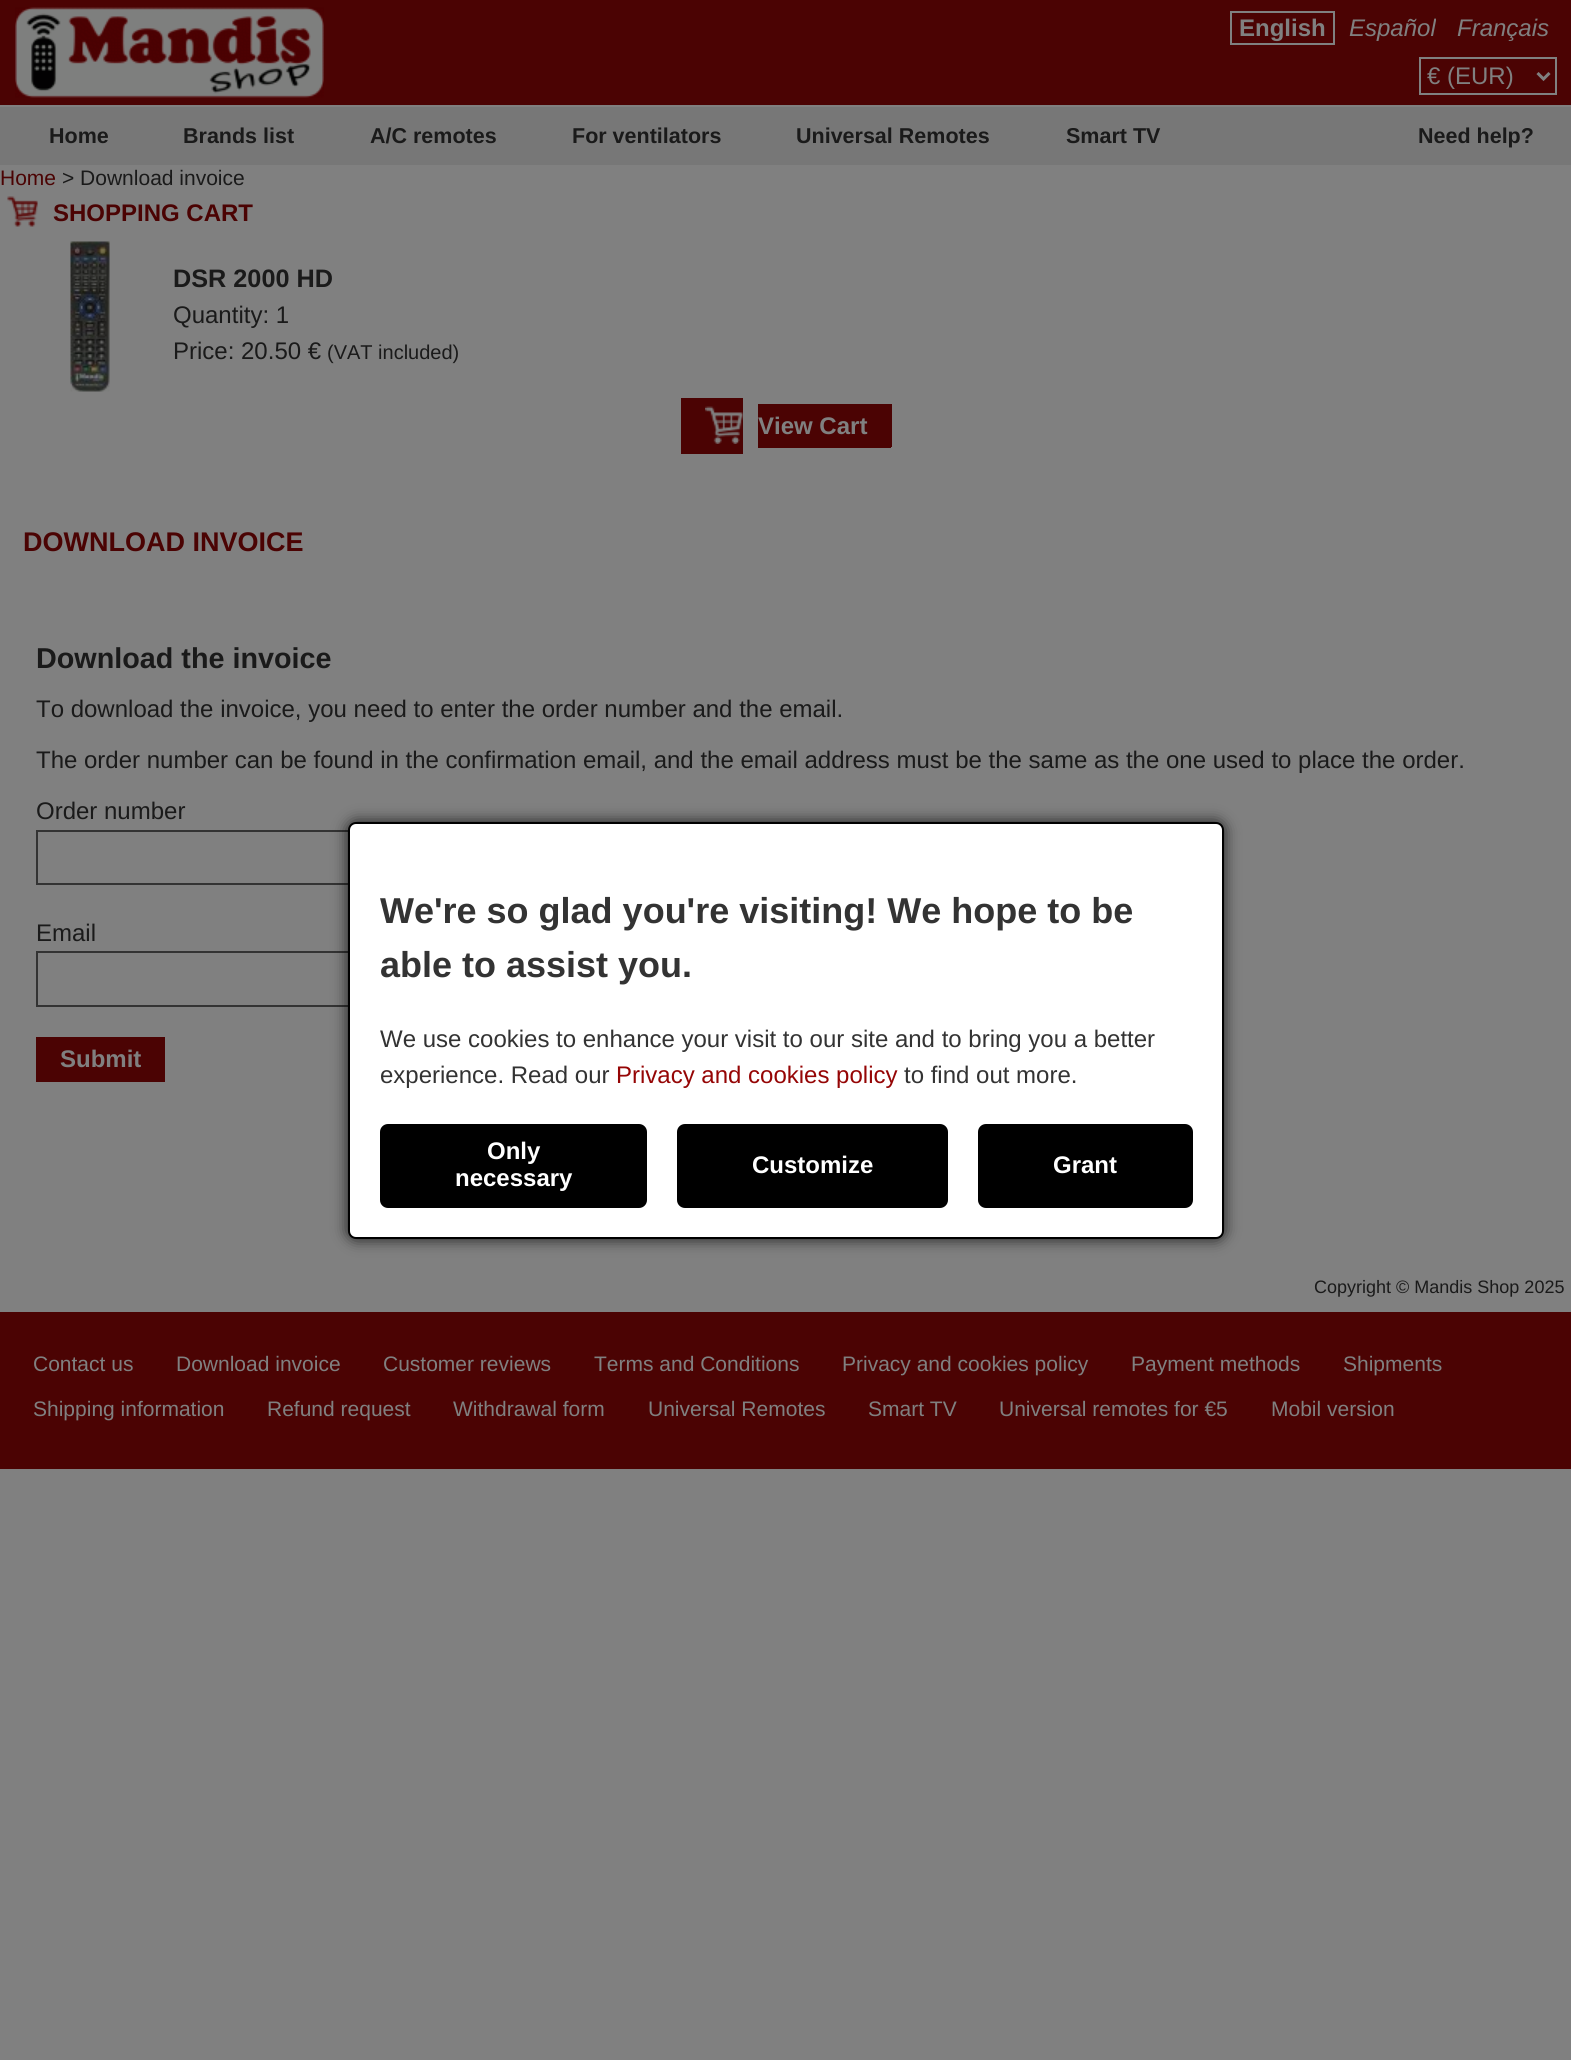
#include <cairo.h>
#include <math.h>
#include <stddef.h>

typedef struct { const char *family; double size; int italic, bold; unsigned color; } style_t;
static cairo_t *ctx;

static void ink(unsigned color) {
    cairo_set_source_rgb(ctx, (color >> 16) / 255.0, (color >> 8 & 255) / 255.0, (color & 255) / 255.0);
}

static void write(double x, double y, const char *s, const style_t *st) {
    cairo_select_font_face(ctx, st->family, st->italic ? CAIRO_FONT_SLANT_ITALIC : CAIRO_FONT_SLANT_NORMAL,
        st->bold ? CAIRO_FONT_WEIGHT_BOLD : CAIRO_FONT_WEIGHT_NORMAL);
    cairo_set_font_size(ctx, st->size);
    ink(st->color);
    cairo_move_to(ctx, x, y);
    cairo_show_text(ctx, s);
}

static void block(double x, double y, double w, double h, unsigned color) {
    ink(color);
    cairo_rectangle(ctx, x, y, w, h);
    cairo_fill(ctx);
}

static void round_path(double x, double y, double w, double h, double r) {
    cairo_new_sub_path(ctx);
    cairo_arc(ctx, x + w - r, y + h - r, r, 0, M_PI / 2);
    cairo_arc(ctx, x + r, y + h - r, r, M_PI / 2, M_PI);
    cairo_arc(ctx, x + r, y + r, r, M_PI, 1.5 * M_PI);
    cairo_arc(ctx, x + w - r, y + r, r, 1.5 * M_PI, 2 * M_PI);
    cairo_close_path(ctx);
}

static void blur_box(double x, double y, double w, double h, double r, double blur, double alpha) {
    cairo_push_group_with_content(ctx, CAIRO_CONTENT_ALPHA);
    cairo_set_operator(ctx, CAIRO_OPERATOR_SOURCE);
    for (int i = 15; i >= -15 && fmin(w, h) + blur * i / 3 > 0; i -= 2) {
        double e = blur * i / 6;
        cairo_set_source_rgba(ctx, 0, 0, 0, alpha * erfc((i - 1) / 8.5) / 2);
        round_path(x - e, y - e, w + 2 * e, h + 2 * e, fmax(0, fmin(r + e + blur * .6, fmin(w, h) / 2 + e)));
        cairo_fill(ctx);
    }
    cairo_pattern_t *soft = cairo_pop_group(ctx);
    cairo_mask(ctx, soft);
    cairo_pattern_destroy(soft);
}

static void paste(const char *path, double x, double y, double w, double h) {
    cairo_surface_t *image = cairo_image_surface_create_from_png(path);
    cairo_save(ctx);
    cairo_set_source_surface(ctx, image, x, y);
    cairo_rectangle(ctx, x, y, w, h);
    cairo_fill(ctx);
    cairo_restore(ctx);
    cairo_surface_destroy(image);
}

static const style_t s1 = {"Liberation Sans", 24, 0, 1, 0x808080};
static const style_t s2 = {"Liberation Sans", 24, 1, 0, 0x808080};
static const style_t s3 = {"Liberation Sans", 24, 0, 0, 0x808080};
static const style_t s4 = {"Liberation Sans", 21.5, 0, 1, 0x1a1a1a};
static const style_t s5 = {"Liberation Sans", 21, 0, 0, 0x4b0303};
static const style_t s6 = {"Liberation Sans", 21, 0, 0, 0x1a1a1a};
static const style_t s7 = {"Liberation Sans", 24, 0, 1, 0x4b0303};
static const style_t s8 = {"Liberation Sans", 25.25, 0, 1, 0x1a1a1a};
static const style_t s9 = {"Liberation Sans", 24, 0, 0, 0x1a1a1a};
static const style_t s10 = {"Liberation Sans", 20, 0, 0, 0x1a1a1a};
static const style_t s11 = {"Liberation Sans", 27, 0, 1, 0x4b0303};
static const style_t s12 = {"Liberation Sans", 28.75, 0, 1, 0x1a1a1a};
static const style_t s13 = {"Liberation Sans", 36, 0, 1, 0x333333};
static const style_t s14 = {"Liberation Sans", 24, 0, 0, 0x333333};
static const style_t s15 = {"Liberation Sans", 24, 0, 0, 0x950505};
static const style_t s16 = {"Liberation Sans", 24, 0, 1, 0xffffff};
static const style_t s17 = {"Liberation Sans", 18, 0, 0, 0x1a1a1a};
static const style_t s18 = {"Liberation Sans", 21, 0, 0, 0x808080};

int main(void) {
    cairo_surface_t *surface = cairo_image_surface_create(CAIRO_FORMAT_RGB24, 1571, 2060);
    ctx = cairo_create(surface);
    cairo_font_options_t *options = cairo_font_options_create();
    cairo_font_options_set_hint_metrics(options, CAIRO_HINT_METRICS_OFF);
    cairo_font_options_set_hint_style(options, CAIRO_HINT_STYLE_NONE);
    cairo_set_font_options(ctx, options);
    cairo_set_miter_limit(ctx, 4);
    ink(0x808080);
    cairo_paint(ctx);
    block(0, 0, 1571, 105, 0x4b0303);
    paste("pic1.png", 15, 7, 309, 91);
    cairo_rectangle(ctx, 1231, 12, 103, 32);
    ink(0x808080);
    cairo_stroke(ctx);
    write(1239, 36, "English", &s1);
    write(1349, 36, "Español", &s2);
    write(1457, 36, "Français", &s2);
    cairo_rectangle(ctx, 1420, 58, 136, 36);
    cairo_stroke(ctx);
    cairo_new_path(ctx);
    cairo_move_to(ctx, 1537.5, 73);
    cairo_line_to(ctx, 1543.5, 79);
    cairo_line_to(ctx, 1549.5, 73);
    cairo_set_line_width(ctx, 3);
    cairo_stroke(ctx);
    write(1427, 84, "€ (EUR)", &s3);
    block(0, 107, 1571, 58, 0x777777);
    write(49, 143, "Home", &s4);
    write(183, 143, "Brands list", &s4);
    write(370, 143, "A/C remotes", &s4);
    write(572, 143, "For ventilators", &s4);
    write(796, 143, "Universal Remotes", &s4);
    write(1066, 143, "Smart TV", &s4);
    write(1418, 143, "Need help?", &s4);
    write(0, 185, "Home", &s5);
    write(62, 185, "> Download invoice", &s6);
    paste("pic2.png", 7, 196, 31, 31);
    write(53, 221, "SHOPPING CART", &s7);
    paste("pic3.png", 70, 241, 40, 151);
    write(173, 287, "DSR 2000 HD", &s8);
    write(173, 323, "Quantity: 1", &s9);
    write(173, 359, "Price: 20.50 €", &s9);
    write(327, 359, "(VAT included)", &s10);
    block(681, 398, 62, 56, 0x4b0303);
    paste("pic4.png", 705, 406, 38, 38);
    block(758, 404, 132, 42, 0x4b0303);
    write(758, 434, "View Cart", &s1);
    block(890, 404, 2, 43, 0x4b0303);
    block(758, 446, 133, 2, 0x4b0303);
    write(23, 551, "DOWNLOAD INVOICE", &s11);
    write(36, 668, "Download the invoice", &s12);
    write(36, 717, "To download the invoice, you need to enter the order number and the email.", &s9);
    write(36, 768, "The order number can be found in the confirmation email, and the email address must be the same as the one used to place the order.", &s9);
    write(36, 819, "Order number", &s9);
    cairo_rectangle(ctx, 37, 831, 391, 53);
    ink(0x333333);
    cairo_set_line_width(ctx, 2);
    cairo_stroke(ctx);
    write(36, 941, "Email", &s9);
    cairo_rectangle(ctx, 37, 952, 391, 54);
    ink(0x333333);
    cairo_stroke(ctx);
    block(36, 1037, 129, 45, 0x4b0303);
    write(60, 1067, "Submit", &s1);
    ink(0x000000);
    blur_box(348, 822, 876, 417, 8, 7.5, 0.8);
    ink(0xffffff);
    round_path(349, 823, 874, 415, 7);
    cairo_fill_preserve(ctx);
    ink(0x000000);
    cairo_stroke(ctx);
    write(380, 923, "We're so glad you're visiting! We hope to be", &s13);
    write(380, 977, "able to assist you.", &s13);
    write(380, 1047, "We use cookies to enhance your visit to our site and to bring you a better", &s14);
    write(380, 1083, "experience. Read our", &s14);
    write(616, 1083, "Privacy and cookies policy", &s15);
    write(904, 1083, "to find out more.", &s14);
    ink(0x000000);
    round_path(380, 1124, 267, 84, 8);
    cairo_fill(ctx);
    write(487, 1159, "Only", &s16);
    write(455, 1186, "necessary", &s16);
    ink(0x000000);
    round_path(677, 1124, 271, 84, 8);
    cairo_fill(ctx);
    write(752, 1173, "Customize", &s16);
    ink(0x000000);
    round_path(978, 1124, 215, 84, 8);
    cairo_fill(ctx);
    write(1053, 1173, "Grant", &s16);
    write(1314, 1293, "Copyright © Mandis Shop 2025", &s17);
    block(0, 1312, 1571, 157, 0x4b0303);
    write(33, 1371, "Contact us", &s18);
    write(176, 1371, "Download invoice", &s18);
    write(383, 1371, "Customer reviews", &s18);
    write(594, 1371, "Terms and Conditions", &s18);
    write(842, 1371, "Privacy and cookies policy", &s18);
    write(1131, 1371, "Payment methods", &s18);
    write(1343, 1371, "Shipments", &s18);
    write(33, 1416, "Shipping information", &s18);
    write(267, 1416, "Refund request", &s18);
    write(453, 1416, "Withdrawal form", &s18);
    write(648, 1416, "Universal Remotes", &s18);
    write(868, 1416, "Smart TV", &s18);
    write(999, 1416, "Universal remotes for €5", &s18);
    write(1271, 1416, "Mobil version", &s18);
    cairo_surface_write_to_png(surface, "screenshot.png");
    cairo_font_options_destroy(options);
    cairo_destroy(ctx);
    cairo_surface_destroy(surface);
    return 0;
}
